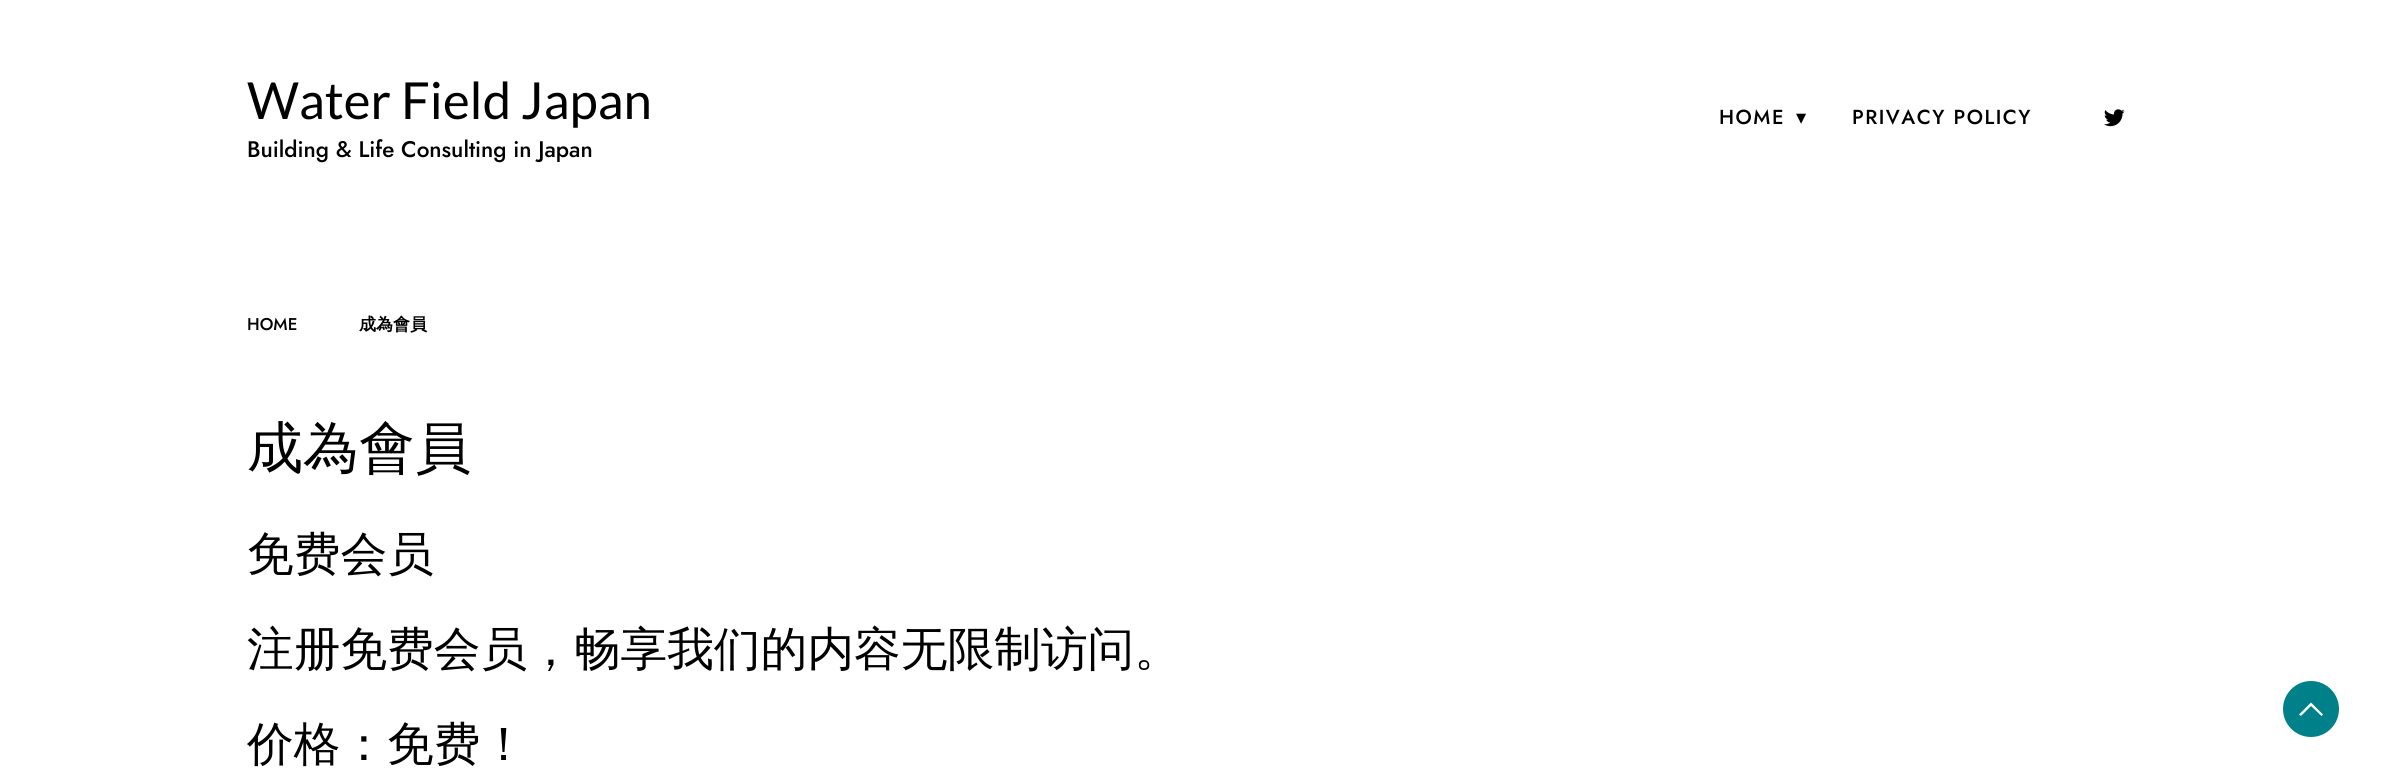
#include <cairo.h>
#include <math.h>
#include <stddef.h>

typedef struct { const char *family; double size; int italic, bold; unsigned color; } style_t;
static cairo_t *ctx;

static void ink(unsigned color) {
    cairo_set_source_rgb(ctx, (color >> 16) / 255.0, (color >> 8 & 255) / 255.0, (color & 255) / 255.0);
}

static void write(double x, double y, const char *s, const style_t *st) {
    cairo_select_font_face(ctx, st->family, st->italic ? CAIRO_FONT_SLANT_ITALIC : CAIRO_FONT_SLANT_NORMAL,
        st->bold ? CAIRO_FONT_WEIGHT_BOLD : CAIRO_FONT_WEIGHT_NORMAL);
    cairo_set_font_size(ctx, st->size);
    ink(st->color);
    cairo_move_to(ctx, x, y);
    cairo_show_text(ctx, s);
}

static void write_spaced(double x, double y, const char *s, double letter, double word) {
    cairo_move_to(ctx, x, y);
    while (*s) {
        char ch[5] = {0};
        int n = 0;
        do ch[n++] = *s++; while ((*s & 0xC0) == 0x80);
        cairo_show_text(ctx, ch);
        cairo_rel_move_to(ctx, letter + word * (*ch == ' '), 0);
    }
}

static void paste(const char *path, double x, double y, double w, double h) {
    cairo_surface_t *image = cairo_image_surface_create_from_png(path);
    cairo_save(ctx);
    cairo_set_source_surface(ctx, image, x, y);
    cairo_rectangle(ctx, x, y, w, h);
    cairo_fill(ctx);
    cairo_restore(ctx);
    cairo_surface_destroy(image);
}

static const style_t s1 = {"Lato", 51, 0, 0, 0x000000};
static const style_t s2 = {"Jost Medium", 22.5, 0, 0, 0x000000};
static const style_t s3 = {"Jost Medium", 17, 0, 0, 0x000000};
static const style_t s4 = {"WenQuanYi Zen Hei", 17, 0, 1, 0x000000};
static const style_t s5 = {"WenQuanYi Zen Hei Medium", 56, 0, 0, 0x000000};
static const style_t s6 = {"WenQuanYi Zen Hei Medium", 46.7, 0, 0, 0x000000};

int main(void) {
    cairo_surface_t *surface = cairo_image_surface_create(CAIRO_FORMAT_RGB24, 2383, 781);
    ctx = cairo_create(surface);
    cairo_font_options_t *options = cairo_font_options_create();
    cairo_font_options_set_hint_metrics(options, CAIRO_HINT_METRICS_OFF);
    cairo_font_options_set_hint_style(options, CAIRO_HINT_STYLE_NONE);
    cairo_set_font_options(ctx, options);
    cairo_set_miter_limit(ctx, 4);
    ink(0xffffff);
    cairo_paint(ctx);
    write(247, 119, "Water Field Japan", &s1);
    write(247, 157, "Building & Life Consulting in Japan", &s2);
    cairo_set_font_size(ctx, 20.25);
    write_spaced(1719, 124, "HOME", 1.5, 0);
    cairo_select_font_face(ctx, "DejaVu Sans", CAIRO_FONT_SLANT_NORMAL, CAIRO_FONT_WEIGHT_NORMAL);
    write_spaced(1796, 124, "▾", 1.5, 0);
    cairo_select_font_face(ctx, "Jost Medium", CAIRO_FONT_SLANT_NORMAL, CAIRO_FONT_WEIGHT_NORMAL);
    write_spaced(1852, 124, "PRIVACY POLICY", 1.5, 0);
    paste("pic1.png", 2104, 109, 21, 18);
    write(247, 330, "HOME", &s3);
    write(359, 330, "成為會員", &s4);
    write(247, 467, "成為會員", &s5);
    write(247, 570, "免费会员", &s6);
    write(247, 665, "注册免费会员，畅享我们的内容无限制访问。", &s6);
    write(247, 760, "价格：免费！", &s6);
    ink(0x00818a);
    cairo_new_path(ctx);
    cairo_arc(ctx, 2311, 709, 28, 0, 2 * M_PI);
    cairo_fill(ctx);
    ink(0xffffff);
    cairo_new_path(ctx);
    cairo_move_to(ctx, 2323, 714.5);
    cairo_line_to(ctx, 2321.5, 716);
    cairo_line_to(ctx, 2311, 706);
    cairo_line_to(ctx, 2301, 716);
    cairo_line_to(ctx, 2299, 714.5);
    cairo_line_to(ctx, 2311, 702.5);
    cairo_line_to(ctx, 2323, 714.5);
    cairo_fill(ctx);
    cairo_surface_write_to_png(surface, "screenshot.png");
    cairo_font_options_destroy(options);
    cairo_destroy(ctx);
    cairo_surface_destroy(surface);
    return 0;
}
